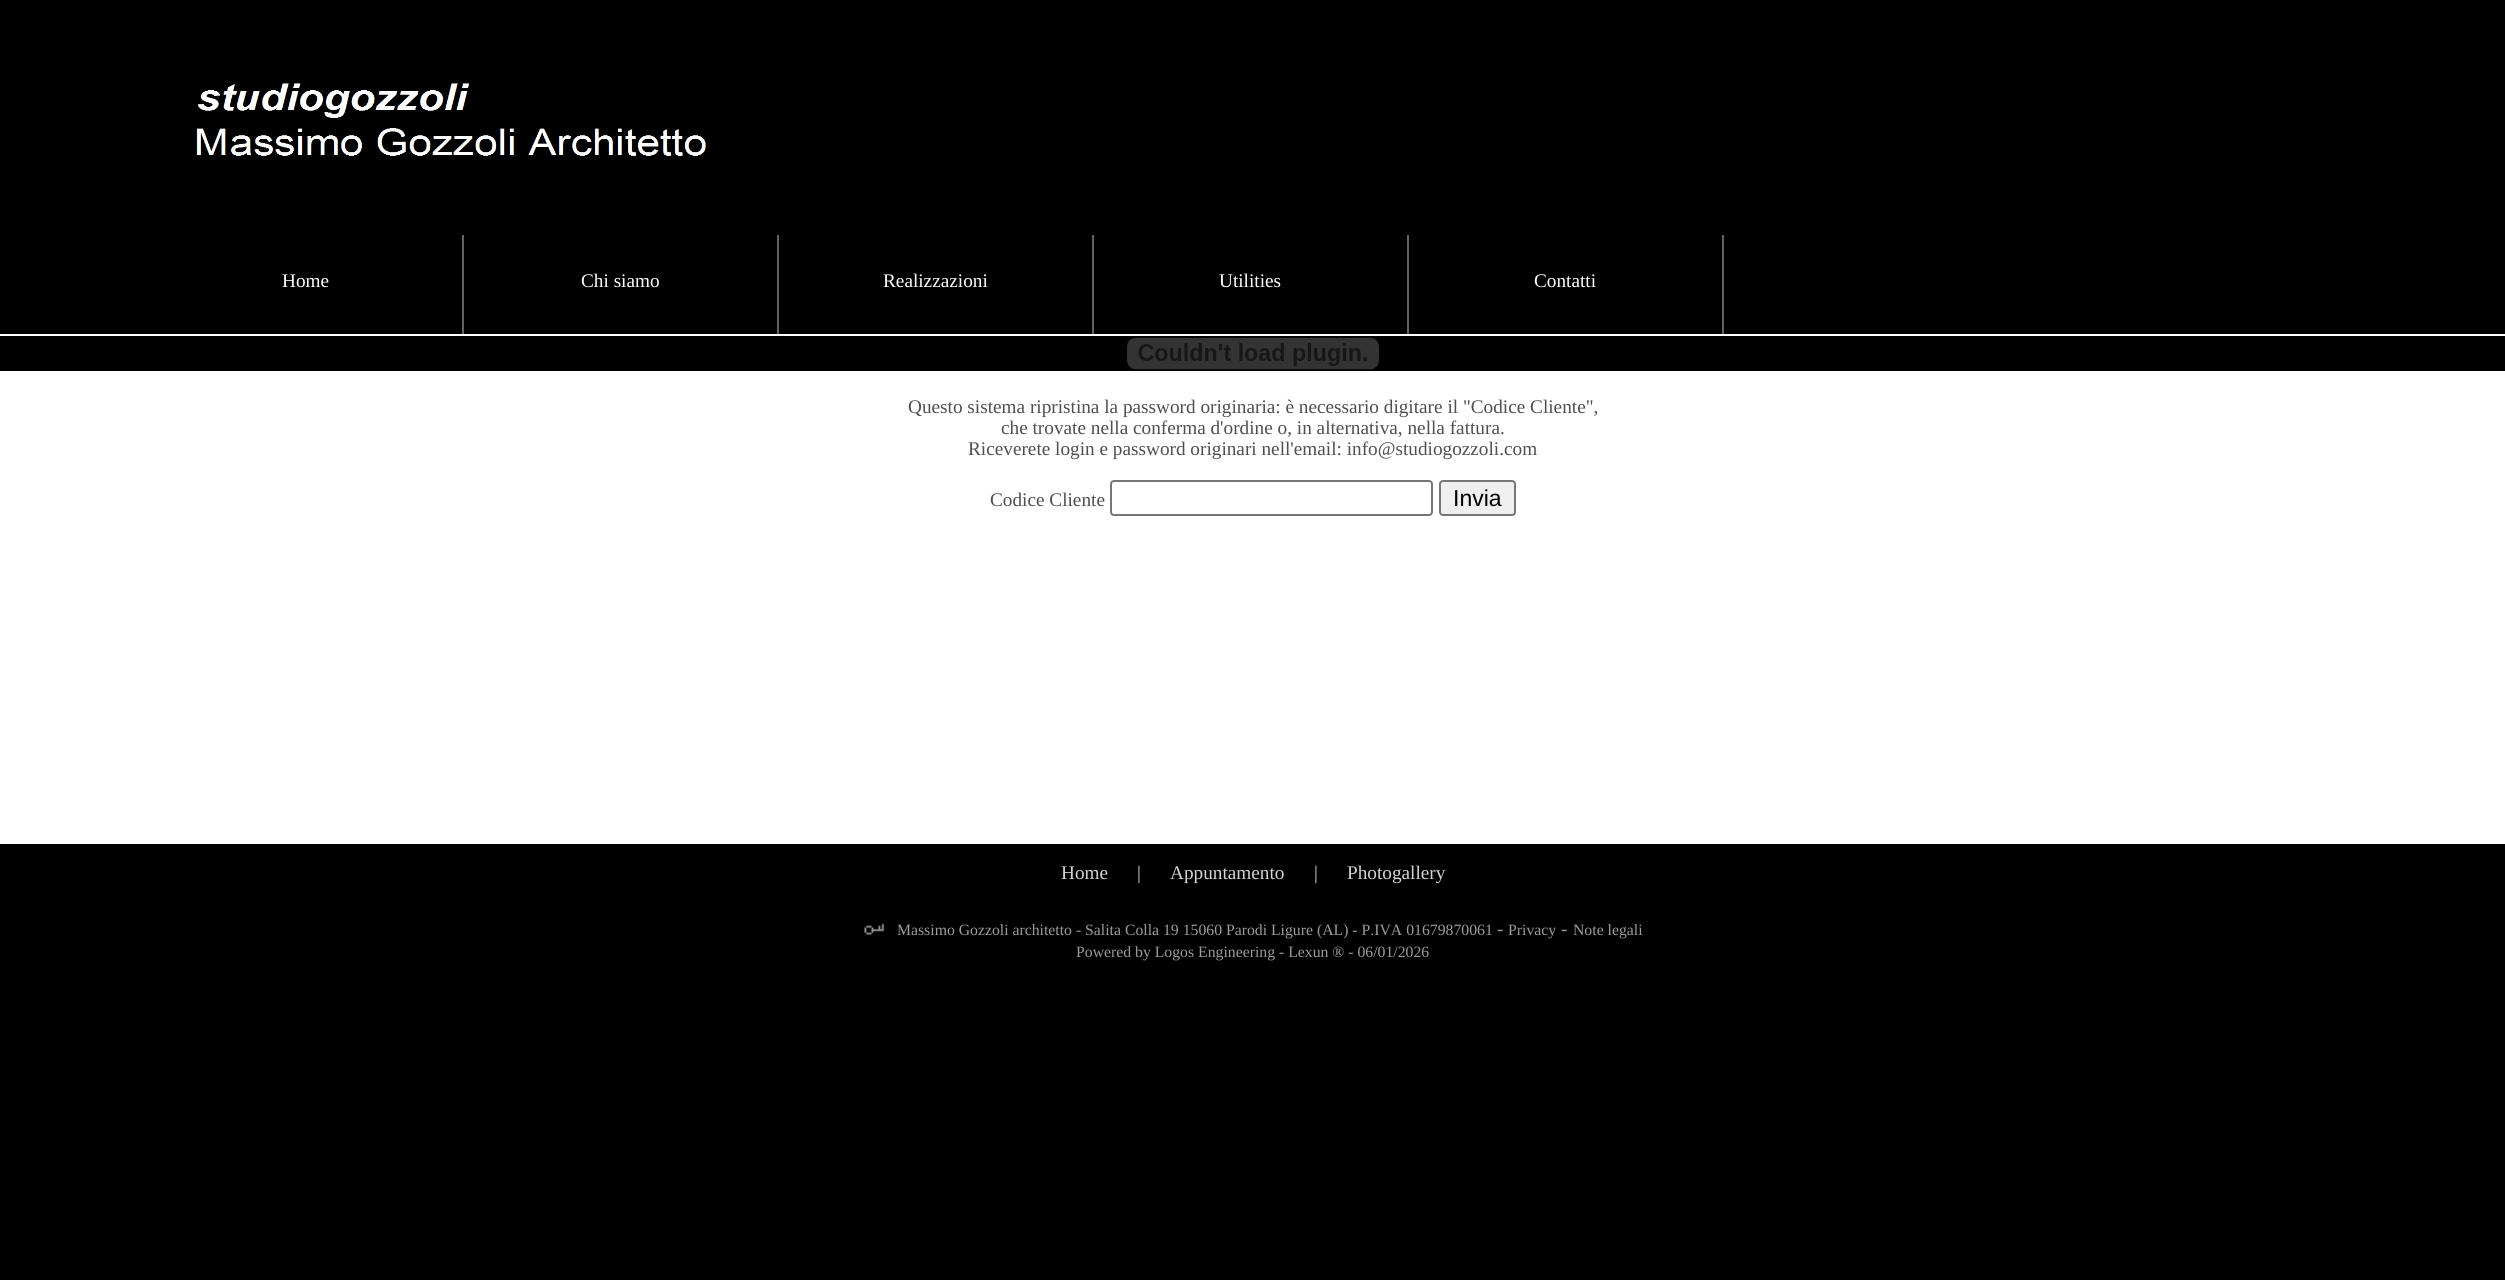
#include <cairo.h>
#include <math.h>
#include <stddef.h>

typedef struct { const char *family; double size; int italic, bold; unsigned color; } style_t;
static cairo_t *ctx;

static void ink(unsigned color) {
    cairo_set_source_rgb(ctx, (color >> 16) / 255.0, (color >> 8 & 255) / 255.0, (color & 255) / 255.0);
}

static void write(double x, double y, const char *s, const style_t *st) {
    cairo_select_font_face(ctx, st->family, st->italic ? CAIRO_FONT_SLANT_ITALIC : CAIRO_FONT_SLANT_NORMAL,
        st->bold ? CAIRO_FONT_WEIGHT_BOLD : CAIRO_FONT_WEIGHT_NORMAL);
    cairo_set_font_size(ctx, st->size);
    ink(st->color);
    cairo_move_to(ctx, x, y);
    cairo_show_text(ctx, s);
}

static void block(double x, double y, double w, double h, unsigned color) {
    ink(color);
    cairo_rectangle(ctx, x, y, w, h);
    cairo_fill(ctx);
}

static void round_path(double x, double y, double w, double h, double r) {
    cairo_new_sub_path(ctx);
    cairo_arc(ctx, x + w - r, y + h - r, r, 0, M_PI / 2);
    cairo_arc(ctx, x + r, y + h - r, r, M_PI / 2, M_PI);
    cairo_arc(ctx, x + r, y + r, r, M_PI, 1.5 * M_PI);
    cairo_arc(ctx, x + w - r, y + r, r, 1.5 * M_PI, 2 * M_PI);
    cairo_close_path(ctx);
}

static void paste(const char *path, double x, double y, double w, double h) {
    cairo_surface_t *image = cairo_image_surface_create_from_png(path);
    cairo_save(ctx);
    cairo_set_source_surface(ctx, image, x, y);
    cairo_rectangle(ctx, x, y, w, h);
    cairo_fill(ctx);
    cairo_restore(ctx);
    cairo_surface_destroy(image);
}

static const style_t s1 = {"Liberation Serif", 19.25, 0, 0, 0xffffff};
static const style_t s2 = {"Liberation Serif", 19.25, 0, 0, 0x4f4f4f};
static const style_t s3 = {"Liberation Sans", 23, 0, 0, 0x000000};
static const style_t s4 = {"Liberation Serif", 19.25, 0, 0, 0xd4d4d4};
static const style_t s5 = {"Liberation Serif", 15.75, 0, 0, 0x9c9c9c};
static const style_t s6 = {"Liberation Serif", 19.25, 0, 0, 0x9c9c9c};

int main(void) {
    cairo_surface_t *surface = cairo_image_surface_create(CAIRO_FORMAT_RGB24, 2505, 1280);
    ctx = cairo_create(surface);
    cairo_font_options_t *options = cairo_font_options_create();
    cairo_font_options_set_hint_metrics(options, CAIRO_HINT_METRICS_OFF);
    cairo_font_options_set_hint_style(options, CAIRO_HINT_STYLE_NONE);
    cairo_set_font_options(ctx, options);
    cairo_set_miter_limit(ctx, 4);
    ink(0x000000);
    cairo_paint(ctx);
    block(462, 235, 2, 99, 0x626262);
    write(282, 287, "Home", &s1);
    block(777, 235, 2, 99, 0x626262);
    write(581, 287, "Chi siamo", &s1);
    block(1092, 235, 2, 99, 0x626262);
    write(883, 287, "Realizzazioni", &s1);
    block(1407, 235, 2, 99, 0x626262);
    write(1219, 287, "Utilities", &s1);
    block(1722, 235, 2, 99, 0x626262);
    write(1534, 287, "Contatti", &s1);
    paste("pic1.png", 191, 81, 516, 78);
    block(0, 334, 2505, 2, 0xffffff);
    paste("pic2.png", 1127, 337, 252, 33);
    block(0, 371, 2505, 473, 0xffffff);
    write(908, 413, "Questo sistema ripristina la password originaria: è necessario digitare il \"Codice Cliente\",", &s2);
    write(1001, 434, "che trovate nella conferma d'ordine o, in alternativa, nella fattura.", &s2);
    write(968, 455, "Riceverete login e password originari nell'email: info@studiogozzoli.com", &s2);
    write(990, 506, "Codice Cliente", &s2);
    round_path(1111, 481, 321, 34, 3);
    ink(0x767676);
    cairo_stroke(ctx);
    ink(0xefefef);
    round_path(1440, 481, 75, 34, 3);
    cairo_fill_preserve(ctx);
    ink(0x767676);
    cairo_stroke(ctx);
    write(1453, 506, "Invia", &s3);
    write(1061, 879, "Home", &s4);
    write(1137, 879, "|", &s4);
    write(1170, 879, "Appuntamento", &s4);
    write(1314, 879, "|", &s4);
    write(1347, 879, "Photogallery", &s4);
    paste("pic3.png", 864, 923, 20, 12);
    write(897, 935, "Massimo Gozzoli architetto - Salita Colla 19 15060 Parodi Ligure (AL) - P.IVA 01679870061", &s5);
    write(1497, 935, "-", &s6);
    write(1508, 935, "Privacy", &s5);
    write(1561, 935, "-", &s6);
    write(1573, 935, "Note legali", &s5);
    write(1076, 957, "Powered by Logos Engineering - Lexun ® - 06/01/2026", &s5);
    cairo_surface_write_to_png(surface, "screenshot.png");
    cairo_font_options_destroy(options);
    cairo_destroy(ctx);
    cairo_surface_destroy(surface);
    return 0;
}
